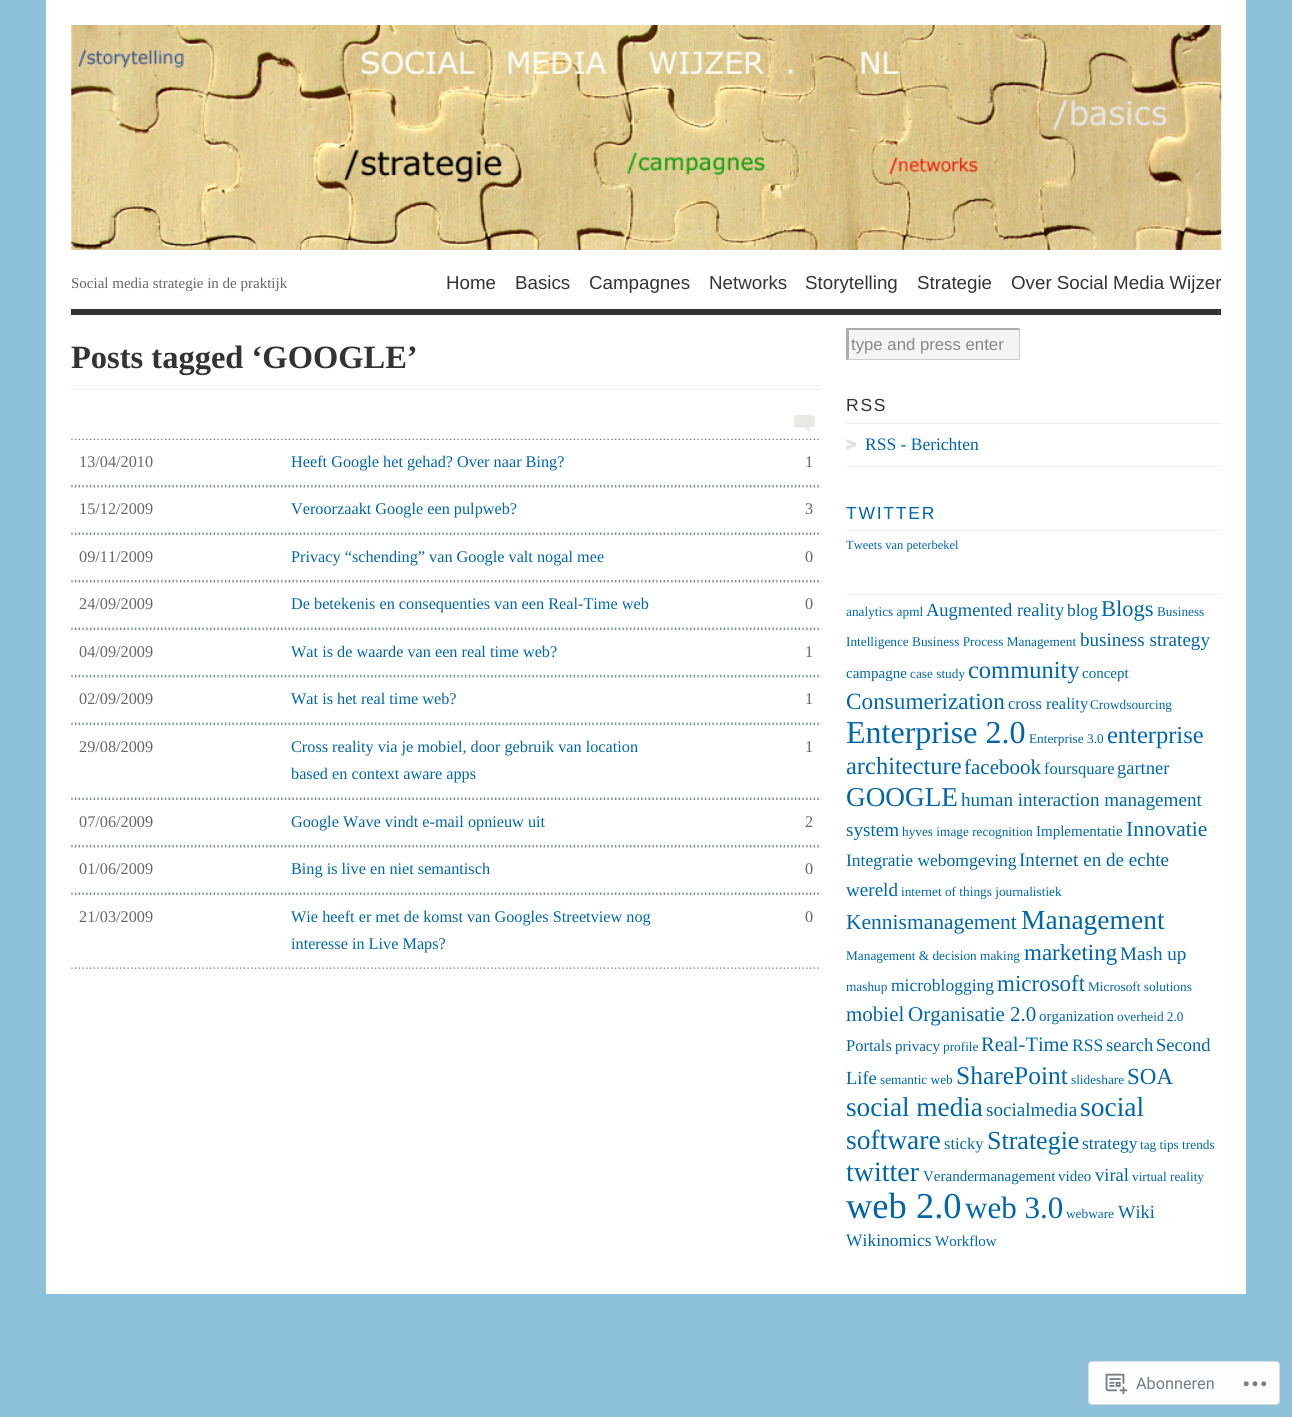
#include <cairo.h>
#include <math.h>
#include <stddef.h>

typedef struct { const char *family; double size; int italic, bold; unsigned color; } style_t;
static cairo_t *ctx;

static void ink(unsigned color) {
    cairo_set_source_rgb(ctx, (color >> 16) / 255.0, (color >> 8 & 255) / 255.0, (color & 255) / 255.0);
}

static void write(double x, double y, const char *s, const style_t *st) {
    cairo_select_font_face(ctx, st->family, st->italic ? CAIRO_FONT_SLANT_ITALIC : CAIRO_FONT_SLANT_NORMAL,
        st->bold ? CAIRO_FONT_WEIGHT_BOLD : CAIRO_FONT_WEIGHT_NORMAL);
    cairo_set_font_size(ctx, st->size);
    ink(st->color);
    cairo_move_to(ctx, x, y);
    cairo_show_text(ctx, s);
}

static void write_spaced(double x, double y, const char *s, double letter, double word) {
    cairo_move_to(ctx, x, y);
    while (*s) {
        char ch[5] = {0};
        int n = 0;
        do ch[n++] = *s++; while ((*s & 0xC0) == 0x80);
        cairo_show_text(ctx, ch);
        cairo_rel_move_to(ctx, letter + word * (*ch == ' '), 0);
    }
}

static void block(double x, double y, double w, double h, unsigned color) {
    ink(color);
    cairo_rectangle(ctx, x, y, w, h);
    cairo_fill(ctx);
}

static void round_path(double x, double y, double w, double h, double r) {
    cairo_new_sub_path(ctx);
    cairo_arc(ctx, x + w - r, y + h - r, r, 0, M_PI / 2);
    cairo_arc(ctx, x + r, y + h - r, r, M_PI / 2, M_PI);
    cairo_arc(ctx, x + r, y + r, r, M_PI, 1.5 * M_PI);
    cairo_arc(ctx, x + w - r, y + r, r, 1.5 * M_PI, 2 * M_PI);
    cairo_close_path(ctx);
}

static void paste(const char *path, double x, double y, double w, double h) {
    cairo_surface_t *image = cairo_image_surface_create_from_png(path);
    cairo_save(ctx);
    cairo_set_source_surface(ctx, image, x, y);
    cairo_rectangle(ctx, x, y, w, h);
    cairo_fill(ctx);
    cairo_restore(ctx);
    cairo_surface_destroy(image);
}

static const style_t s1 = {"Liberation Serif", 15, 0, 0, 0x666666};
static const style_t s2 = {"Liberation Sans", 18.75, 0, 0, 0x333333};
static const style_t s3 = {"Liberation Serif", 32.5, 0, 1, 0x333333};
static const style_t s4 = {"Liberation Serif", 16.25, 0, 0, 0x666666};
static const style_t s5 = {"Liberation Serif", 16.25, 0, 0, 0x0066aa};
static const style_t s6 = {"Liberation Sans", 16.75, 0, 0, 0x888888};
static const style_t s7 = {"Liberation Serif", 17.5, 0, 0, 0x0066aa};
static const style_t s8 = {"Liberation Serif", 12.5, 0, 0, 0x0066aa};
static const style_t s9 = {"Liberation Serif", 13.3, 0, 0, 0x0066aa};
static const style_t s10 = {"Liberation Serif", 18.5, 0, 0, 0x0066aa};
static const style_t s11 = {"Liberation Serif", 22.5, 0, 0, 0x0066aa};
static const style_t s12 = {"Liberation Serif", 19.1, 0, 0, 0x0066aa};
static const style_t s13 = {"Liberation Serif", 15, 0, 0, 0x0066aa};
static const style_t s14 = {"Liberation Serif", 24.5, 0, 0, 0x0066aa};
static const style_t s15 = {"Liberation Serif", 23.25, 0, 0, 0x0066aa};
static const style_t s16 = {"Liberation Serif", 16.5, 0, 0, 0x0066aa};
static const style_t s17 = {"Liberation Serif", 32, 0, 0, 0x0066aa};
static const style_t s18 = {"Liberation Serif", 21, 0, 0, 0x0066aa};
static const style_t s19 = {"Liberation Serif", 27.25, 0, 0, 0x0066aa};
static const style_t s20 = {"Liberation Serif", 21.5, 0, 0, 0x0066aa};
static const style_t s21 = {"Liberation Serif", 27.5, 0, 0, 0x0066aa};
static const style_t s22 = {"Liberation Serif", 23, 0, 0, 0x0066aa};
static const style_t s23 = {"Liberation Serif", 20.5, 0, 0, 0x0066aa};
static const style_t s24 = {"Liberation Serif", 25.5, 0, 0, 0x0066aa};
static const style_t s25 = {"Liberation Serif", 26, 0, 0, 0x0066aa};
static const style_t s26 = {"Liberation Serif", 28, 0, 0, 0x0066aa};
static const style_t s27 = {"Liberation Serif", 36.5, 0, 0, 0x0066aa};
static const style_t s28 = {"Liberation Serif", 31, 0, 0, 0x0066aa};
static const style_t s29 = {"Roboto", 16.25, 0, 0, 0x787d84};

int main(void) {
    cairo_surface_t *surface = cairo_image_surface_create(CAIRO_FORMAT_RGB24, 1292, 1417);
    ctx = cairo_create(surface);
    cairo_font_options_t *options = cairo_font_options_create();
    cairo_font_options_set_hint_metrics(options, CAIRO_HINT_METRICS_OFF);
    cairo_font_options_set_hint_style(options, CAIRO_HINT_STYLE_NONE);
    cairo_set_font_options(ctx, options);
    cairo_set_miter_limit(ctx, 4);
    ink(0x8ec1da);
    cairo_paint(ctx);
    block(46, 0, 1200, 1294, 0xffffff);
    block(71, 309, 1150, 6, 0x333333);
    paste("pic1.png", 71, 25, 1151, 225);
    write(71, 288, "Social media strategie in de praktijk", &s1);
    write(446, 289, "Home", &s2);
    write(515, 289, "Basics", &s2);
    write(589, 289, "Campagnes", &s2);
    write(709, 289, "Networks", &s2);
    write(805, 289, "Storytelling", &s2);
    write(917, 289, "Strategie", &s2);
    write(1011, 289, "Over Social Media Wijzer", &s2);
    block(71, 385, 750, 1, 0xeeeeee);
    block(71, 389, 750, 1, 0xeeeeee);
    write(71, 368, "Posts tagged ‘GOOGLE’", &s3);
    paste("pic2.png", 793, 415, 22, 18);
    paste("pic3.png", 71, 485, 751, 2);
    paste("pic4.png", 71, 438, 751, 2);
    write(79, 467, "13/04/2010", &s4);
    write(291, 467, "Heeft Google het gehad? Over naar Bing?", &s5);
    write(805, 467, "1", &s4);
    paste("pic5.png", 71, 532, 751, 2);
    paste("pic6.png", 71, 486, 751, 2);
    write(79, 514, "15/12/2009", &s4);
    write(291, 514, "Veroorzaakt Google een pulpweb?", &s5);
    write(805, 514, "3", &s4);
    paste("pic3.png", 71, 580, 751, 2);
    paste("pic7.png", 71, 533, 751, 2);
    write(79, 562, "09/11/2009", &s4);
    write(291, 562, "Privacy “schending” van Google valt nogal mee", &s5);
    write(805, 562, "0", &s4);
    paste("pic5.png", 71, 627, 751, 2);
    paste("pic6.png", 71, 581, 751, 2);
    write(79, 609, "24/09/2009", &s4);
    write(291, 609, "De betekenis en consequenties van een Real-Time web", &s5);
    write(805, 609, "0", &s4);
    paste("pic3.png", 71, 675, 751, 2);
    paste("pic7.png", 71, 628, 751, 2);
    write(79, 657, "04/09/2009", &s4);
    write(291, 657, "Wat is de waarde van een real time web?", &s5);
    write(805, 657, "1", &s4);
    paste("pic5.png", 71, 722, 751, 2);
    paste("pic6.png", 71, 676, 751, 2);
    write(79, 704, "02/09/2009", &s4);
    write(291, 704, "Wat is het real time web?", &s5);
    write(805, 704, "1", &s4);
    paste("pic5.png", 71, 797, 751, 2);
    paste("pic7.png", 71, 723, 751, 2);
    write(79, 752, "29/08/2009", &s4);
    write(291, 752, "Cross reality via je mobiel, door gebruik van location", &s5);
    write(805, 752, "1", &s4);
    write(291, 779, "based en context aware apps", &s5);
    paste("pic3.png", 71, 845, 751, 2);
    paste("pic7.png", 71, 798, 751, 2);
    write(79, 827, "07/06/2009", &s4);
    write(291, 827, "Google Wave vindt e-mail opnieuw uit", &s5);
    write(805, 827, "2", &s4);
    paste("pic5.png", 71, 892, 751, 2);
    paste("pic6.png", 71, 846, 751, 2);
    write(79, 874, "01/06/2009", &s4);
    write(291, 874, "Bing is live en niet semantisch", &s5);
    write(805, 874, "0", &s4);
    paste("pic5.png", 71, 967, 751, 2);
    paste("pic7.png", 71, 893, 751, 2);
    write(79, 922, "21/03/2009", &s4);
    write(291, 922, "Wie heeft er met de komst van Googles Streetview nog", &s5);
    write(805, 922, "0", &s4);
    write(291, 949, "interesse in Live Maps?", &s5);
    block(849, 330, 170, 29, 0xf4f4f4);
    ink(0xacacac);
    cairo_new_path(ctx);
    cairo_move_to(ctx, 846, 328);
    cairo_line_to(ctx, 1020, 328);
    cairo_line_to(ctx, 1019, 330);
    cairo_line_to(ctx, 849, 330);
    cairo_close_path(ctx);
    cairo_fill(ctx);
    ink(0xcccccc);
    cairo_new_path(ctx);
    cairo_move_to(ctx, 1020, 327.5);
    cairo_line_to(ctx, 1020, 360);
    cairo_line_to(ctx, 1019, 359);
    cairo_line_to(ctx, 1019, 330);
    cairo_close_path(ctx);
    cairo_fill(ctx);
    cairo_new_path(ctx);
    cairo_move_to(ctx, 1020, 360);
    cairo_line_to(ctx, 846, 360);
    cairo_line_to(ctx, 849, 359);
    cairo_line_to(ctx, 1019, 359);
    cairo_close_path(ctx);
    cairo_fill(ctx);
    ink(0xacacac);
    cairo_new_path(ctx);
    cairo_move_to(ctx, 846, 360);
    cairo_line_to(ctx, 846, 327.5);
    cairo_line_to(ctx, 849, 330);
    cairo_line_to(ctx, 849, 359);
    cairo_close_path(ctx);
    cairo_fill(ctx);
    write(851, 350, "type and press enter", &s6);
    block(846, 423, 375, 1, 0xeeeeee);
    cairo_set_font_size(ctx, 17.5);
    ink(0x333333);
    write_spaced(846, 411, "RSS", 1.75, 0);
    block(846, 466, 375, 1, 0xeeeeee);
    paste("pic8.png", 846, 439, 11, 11);
    write(865, 450, "RSS - Berichten", &s7);
    block(846, 530, 375, 1, 0xeeeeee);
    cairo_select_font_face(ctx, "Liberation Sans", CAIRO_FONT_SLANT_NORMAL, CAIRO_FONT_WEIGHT_NORMAL);
    ink(0x0066aa);
    write_spaced(846, 519, "TWITTER", 1.75, 0);
    write(846, 549, "Tweets van peterbekel", &s8);
    block(846, 594, 375, 1, 0xeeeeee);
    write(846, 616, "analytics apml", &s9);
    write(926, 616, "Augmented reality", &s10);
    write(1067, 616, "blog", &s7);
    write(1101, 616, "Blogs", &s11);
    write(1157, 616, "Business", &s9);
    write(846, 646, "Intelligence Business Process Management", &s9);
    write(1080, 646, "business strategy", &s12);
    write(846, 678, "campagne", &s13);
    write(910, 678, "case study", &s9);
    write(968, 678, "community", &s14);
    write(1082, 678, "concept", &s13);
    write(846, 709, "Consumerization", &s15);
    write(1008, 709, "cross reality", &s16);
    write(1090, 709, "Crowdsourcing", &s9);
    write(846, 743, "Enterprise 2.0", &s17);
    write(1029, 743, "Enterprise 3.0", &s9);
    write(1107, 743, "enterprise", &s14);
    write(846, 774, "architecture", &s14);
    write(964, 774, "facebook", &s18);
    write(1044, 774, "foursquare", &s16);
    write(1117, 774, "gartner", &s10);
    write(846, 806, "GOOGLE", &s19);
    write(961, 806, "human interaction management", &s12);
    write(846, 836, "system", &s12);
    write(902, 836, "hyves image recognition", &s9);
    write(1036, 836, "Implementatie", &s13);
    write(1126, 836, "Innovatie", &s20);
    write(846, 866, "Integratie webomgeving", &s7);
    write(1019, 866, "Internet en de echte", &s12);
    write(846, 896, "wereld", &s12);
    write(901, 896, "internet of things journalistiek", &s9);
    write(846, 929, "Kennismanagement", &s20);
    write(1021, 929, "Management", &s21);
    write(846, 960, "Management & decision making", &s9);
    write(1024, 960, "marketing", &s22);
    write(1120, 960, "Mash up", &s12);
    write(846, 991, "mashup", &s9);
    write(891, 991, "microblogging", &s7);
    write(997, 991, "microsoft", &s22);
    write(1088, 991, "Microsoft solutions", &s9);
    write(846, 1021, "mobiel", &s18);
    write(908, 1021, "Organisatie 2.0", &s18);
    write(1039, 1021, "organization", &s13);
    write(1117, 1021, "overheid 2.0", &s9);
    write(846, 1051, "Portals", &s16);
    write(895, 1051, "privacy", &s13);
    write(943, 1051, "profile", &s9);
    write(981, 1051, "Real-Time", &s23);
    write(1072, 1051, "RSS", &s7);
    write(1106, 1051, "search", &s10);
    write(1156, 1051, "Second", &s10);
    write(846, 1084, "Life", &s10);
    write(880, 1084, "semantic web", &s9);
    write(956, 1084, "SharePoint", &s24);
    write(1071, 1084, "slideshare", &s9);
    write(1127, 1084, "SOA", &s22);
    write(846, 1116, "social media", &s19);
    write(986, 1116, "socialmedia", &s12);
    write(1080, 1116, "social", &s21);
    write(846, 1149, "software", &s21);
    write(944, 1149, "sticky", &s16);
    write(987, 1149, "Strategie", &s25);
    write(1082, 1149, "strategy", &s7);
    write(1140, 1149, "tag tips trends", &s9);
    write(846, 1181, "twitter", &s26);
    write(923, 1181, "Verandermanagement", &s13);
    write(1058, 1181, "video", &s13);
    write(1095, 1181, "viral", &s10);
    write(1132, 1181, "virtual reality", &s9);
    write(846, 1218, "web 2.0", &s27);
    write(965, 1218, "web 3.0", &s28);
    write(1066, 1218, "webware", &s9);
    write(1118, 1218, "Wiki", &s10);
    write(846, 1246, "Wikinomics", &s7);
    write(935, 1246, "Workflow", &s13);
    ink(0xfdfefe);
    round_path(1088.5, 1361.5, 191, 43, 3.5);
    cairo_fill_preserve(ctx);
    ink(0xdadbde);
    cairo_set_line_width(ctx, 1);
    cairo_stroke(ctx);
    paste("pic9.png", 1105, 1373, 23, 22);
    write(1136, 1389, "Abonneren", &s29);
    paste("pic10.png", 1243, 1381, 24, 6);
    cairo_surface_write_to_png(surface, "screenshot.png");
    cairo_font_options_destroy(options);
    cairo_destroy(ctx);
    cairo_surface_destroy(surface);
    return 0;
}
